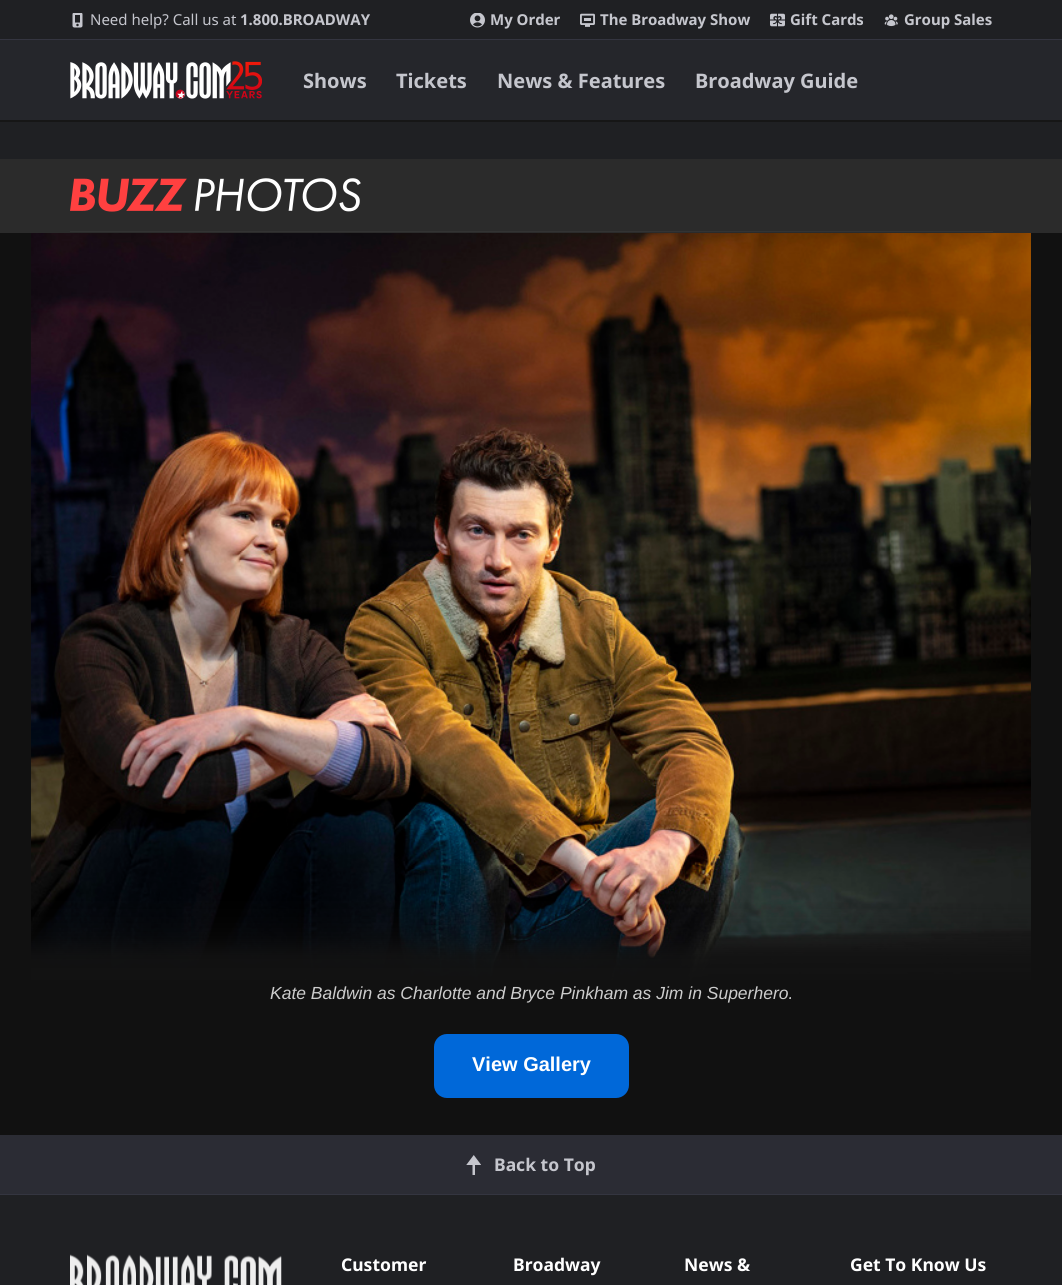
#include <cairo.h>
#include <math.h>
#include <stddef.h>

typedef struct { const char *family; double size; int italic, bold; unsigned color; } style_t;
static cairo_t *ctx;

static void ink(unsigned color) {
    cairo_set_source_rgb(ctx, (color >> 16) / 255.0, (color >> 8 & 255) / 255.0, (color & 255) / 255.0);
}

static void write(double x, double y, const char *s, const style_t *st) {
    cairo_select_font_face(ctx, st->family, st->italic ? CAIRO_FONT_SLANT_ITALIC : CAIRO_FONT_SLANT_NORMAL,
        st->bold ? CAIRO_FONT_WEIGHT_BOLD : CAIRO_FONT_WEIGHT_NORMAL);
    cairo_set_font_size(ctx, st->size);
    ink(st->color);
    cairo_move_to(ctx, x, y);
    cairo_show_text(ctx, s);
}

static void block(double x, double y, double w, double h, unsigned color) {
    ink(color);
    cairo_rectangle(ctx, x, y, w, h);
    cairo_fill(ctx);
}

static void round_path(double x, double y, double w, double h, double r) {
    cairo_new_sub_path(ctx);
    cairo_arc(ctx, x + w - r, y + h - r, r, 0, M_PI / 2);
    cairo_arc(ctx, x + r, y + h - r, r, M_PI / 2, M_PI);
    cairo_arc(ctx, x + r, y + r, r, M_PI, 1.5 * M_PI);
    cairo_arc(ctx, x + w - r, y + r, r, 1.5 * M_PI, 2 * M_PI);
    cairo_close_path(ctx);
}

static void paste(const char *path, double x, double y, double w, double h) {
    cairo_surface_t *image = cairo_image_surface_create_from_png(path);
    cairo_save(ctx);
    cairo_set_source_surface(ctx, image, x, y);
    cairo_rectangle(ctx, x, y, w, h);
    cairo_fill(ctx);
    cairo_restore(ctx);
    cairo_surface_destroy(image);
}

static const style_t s1 = {"Noto Sans", 15, 0, 0, 0xc5c6cd};
static const style_t s2 = {"Noto Sans", 15, 0, 1, 0xc5c6cd};
static const style_t s3 = {"Noto Sans", 20, 0, 1, 0xc5c6cd};
static const style_t s4 = {"Liberation Sans", 17.5, 1, 0, 0xcccccc};
static const style_t s5 = {"Liberation Sans", 20, 0, 1, 0xffffff};
static const style_t s6 = {"Noto Sans", 17.5, 0, 1, 0xc5c6cd};
static const style_t s7 = {"Noto Sans", 17.5, 0, 1, 0xffffff};

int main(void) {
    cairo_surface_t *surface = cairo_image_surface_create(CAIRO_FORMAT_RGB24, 1062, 1285);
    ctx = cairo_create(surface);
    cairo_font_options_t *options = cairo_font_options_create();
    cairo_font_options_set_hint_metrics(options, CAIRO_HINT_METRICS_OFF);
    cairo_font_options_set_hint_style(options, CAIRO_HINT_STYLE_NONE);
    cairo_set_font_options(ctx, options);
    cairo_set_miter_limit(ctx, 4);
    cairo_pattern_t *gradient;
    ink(0x25262b);
    cairo_paint(ctx);
    block(0, 0, 1062, 39, 0x1f2023);
    block(0, 39, 1062, 1, 0x343540);
    paste("pic1.png", 72, 13, 11, 15);
    write(90, 25, "Need help? Call us at", &s1);
    write(240, 25, "1.800.BROADWAY", &s2);
    paste("pic2.png", 470, 13, 15, 15);
    write(490, 25, "My Order", &s2);
    paste("pic3.png", 580, 13, 15, 14);
    write(600, 25, "The Broadway Show", &s2);
    paste("pic4.png", 770, 13, 15, 14);
    write(790, 25, "Gift Cards", &s2);
    paste("pic5.png", 884, 14, 14, 13);
    write(904, 25, "Group Sales", &s2);
    block(0, 120, 1062, 2, 0x161616);
    paste("pic6.png", 70, 61, 192, 38);
    write(303, 88, "Shows", &s3);
    write(396, 88, "Tickets", &s3);
    write(497, 88, "News & Features", &s3);
    write(695, 88, "Broadway Guide", &s3);
    block(0, 159, 1062, 74, 0x2b2b2b);
    block(0, 122, 1062, 37, 0x1f2023);
    paste("pic7.png", 70, 178, 291, 34);
    block(70, 231, 923, 1, 0x333333);
    block(0, 233, 1062, 902, 0x111111);
    paste("pic8.png", 31, 233, 1000, 747);
    gradient = cairo_pattern_create_linear(531, 984, 531, 884);
    cairo_pattern_add_color_stop_rgba(gradient, 0, 0.071, 0.071, 0.071, 1);
    cairo_pattern_add_color_stop_rgba(gradient, 0.07, 0.071, 0.071, 0.071, 0.99);
    cairo_pattern_add_color_stop_rgba(gradient, 0.15, 0.071, 0.071, 0.071, 0.97);
    cairo_pattern_add_color_stop_rgba(gradient, 0.2, 0.071, 0.071, 0.071, 0.95);
    cairo_pattern_add_color_stop_rgba(gradient, 0.23, 0.071, 0.071, 0.071, 0.93);
    cairo_pattern_add_color_stop_rgba(gradient, 0.25, 0.071, 0.071, 0.071, 0.91);
    cairo_pattern_add_color_stop_rgba(gradient, 0.28, 0.071, 0.071, 0.071, 0.88);
    cairo_pattern_add_color_stop_rgba(gradient, 0.31, 0.071, 0.071, 0.071, 0.8);
    cairo_pattern_add_color_stop_rgba(gradient, 0.35, 0.071, 0.071, 0.071, 0.69);
    cairo_pattern_add_color_stop_rgba(gradient, 0.4, 0.071, 0.071, 0.071, 0.55);
    cairo_pattern_add_color_stop_rgba(gradient, 0.43, 0.071, 0.071, 0.071, 0.48);
    cairo_pattern_add_color_stop_rgba(gradient, 0.45, 0.071, 0.071, 0.071, 0.42);
    cairo_pattern_add_color_stop_rgba(gradient, 0.48, 0.071, 0.071, 0.071, 0.36);
    cairo_pattern_add_color_stop_rgba(gradient, 0.49, 0.071, 0.071, 0.071, 0.34);
    cairo_pattern_add_color_stop_rgba(gradient, 0.55, 0.071, 0.071, 0.071, 0.26);
    cairo_pattern_add_color_stop_rgba(gradient, 0.58, 0.071, 0.071, 0.071, 0.22);
    cairo_pattern_add_color_stop_rgba(gradient, 0.65, 0.071, 0.071, 0.071, 0.15);
    cairo_pattern_add_color_stop_rgba(gradient, 0.72, 0.071, 0.071, 0.071, 0.1);
    cairo_pattern_add_color_stop_rgba(gradient, 0.78, 0.071, 0.071, 0.071, 0.06);
    cairo_pattern_add_color_stop_rgba(gradient, 0.85, 0.071, 0.071, 0.071, 0.01);
    cairo_pattern_add_color_stop_rgba(gradient, 1, 0.071, 0.071, 0.071, 0);
    cairo_set_source(ctx, gradient);
    cairo_pattern_destroy(gradient);
    cairo_rectangle(ctx, 31, 901, 1000, 79);
    cairo_fill(ctx);
    write(270, 999, "Kate Baldwin as Charlotte and Bryce Pinkham as Jim in Superhero.", &s4);
    ink(0x0068d9);
    round_path(434, 1034, 195, 64, 13);
    cairo_fill(ctx);
    write(472, 1071, "View Gallery", &s5);
    block(0, 1135, 1062, 59, 0x2b2c34);
    block(0, 1194, 1062, 1, 0x343540);
    paste("pic9.png", 466, 1155, 15, 20);
    write(494, 1171, "Back to Top", &s6);
    block(0, 1195, 1062, 90, 0x1f2023);
    paste("pic10.png", 70, 1254, 212, 31);
    write(341, 1271, "Customer", &s7);
    write(513, 1271, "Broadway", &s7);
    write(684, 1271, "News &", &s7);
    write(850, 1271, "Get To Know Us", &s7);
    cairo_surface_write_to_png(surface, "screenshot.png");
    cairo_font_options_destroy(options);
    cairo_destroy(ctx);
    cairo_surface_destroy(surface);
    return 0;
}
